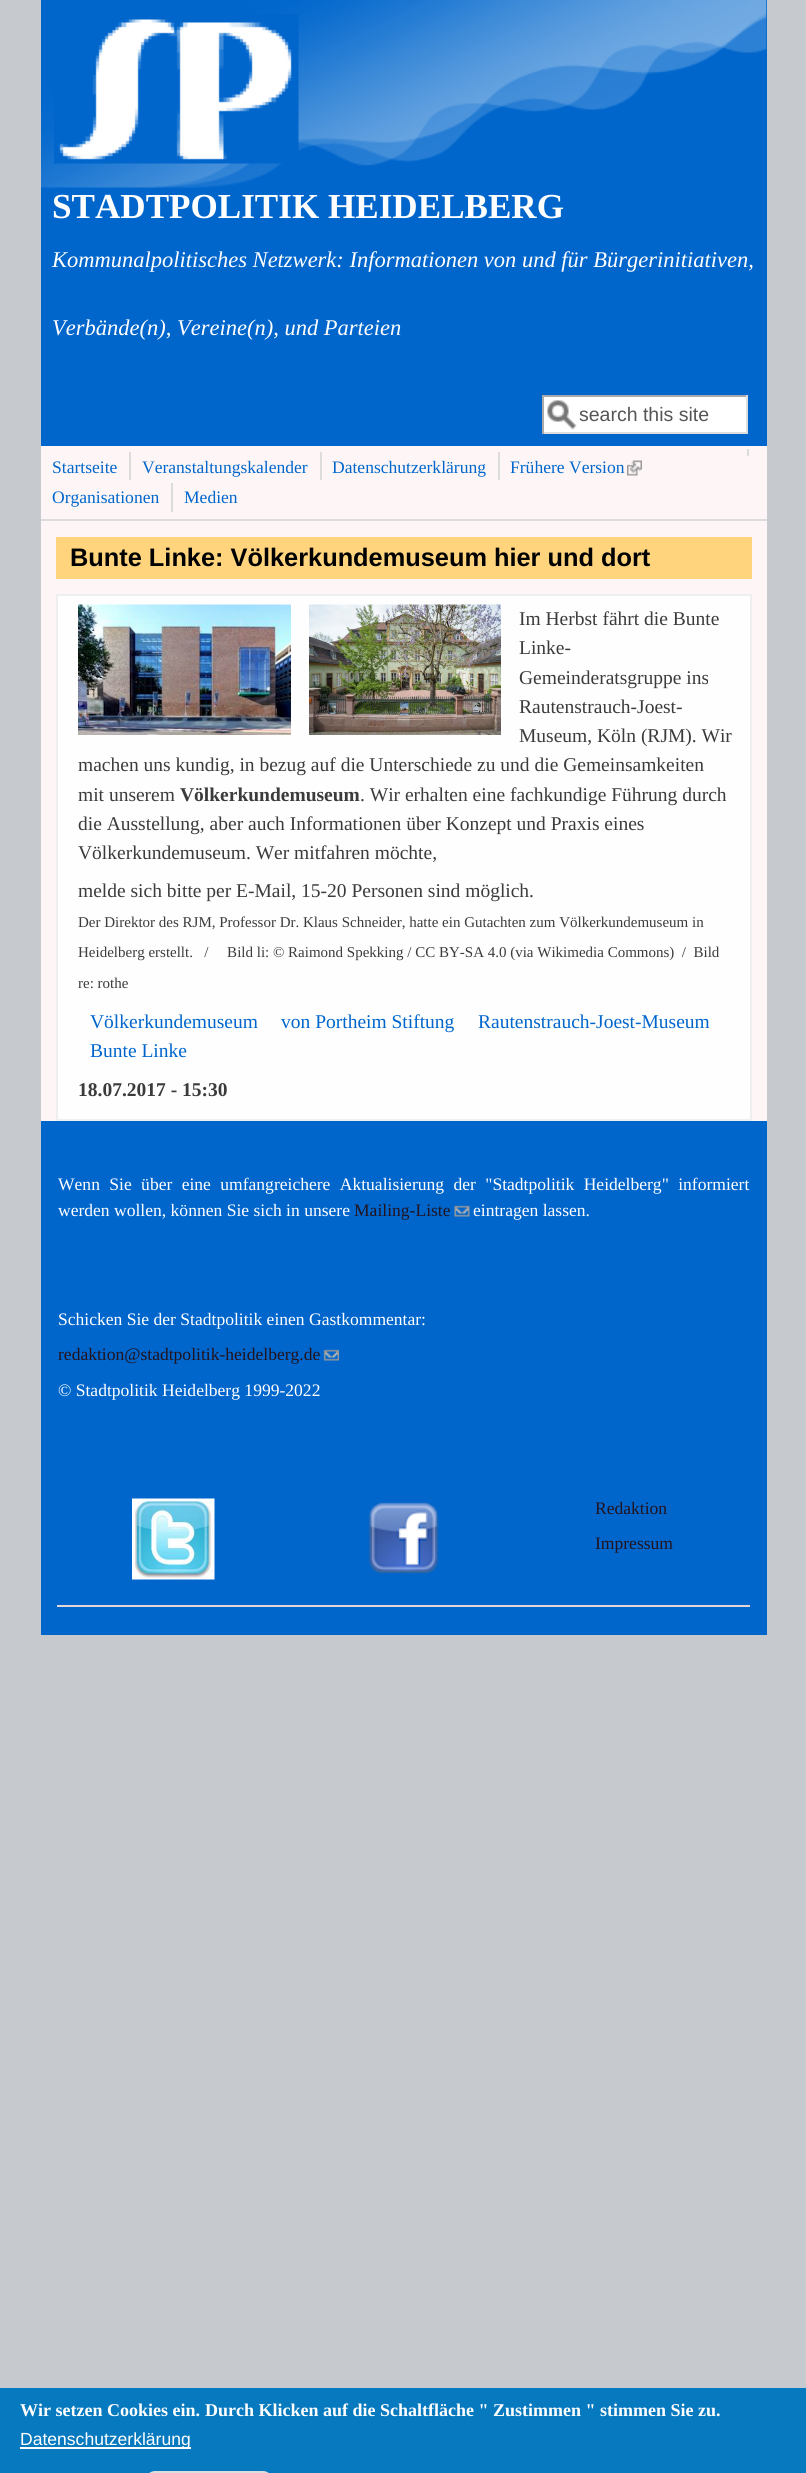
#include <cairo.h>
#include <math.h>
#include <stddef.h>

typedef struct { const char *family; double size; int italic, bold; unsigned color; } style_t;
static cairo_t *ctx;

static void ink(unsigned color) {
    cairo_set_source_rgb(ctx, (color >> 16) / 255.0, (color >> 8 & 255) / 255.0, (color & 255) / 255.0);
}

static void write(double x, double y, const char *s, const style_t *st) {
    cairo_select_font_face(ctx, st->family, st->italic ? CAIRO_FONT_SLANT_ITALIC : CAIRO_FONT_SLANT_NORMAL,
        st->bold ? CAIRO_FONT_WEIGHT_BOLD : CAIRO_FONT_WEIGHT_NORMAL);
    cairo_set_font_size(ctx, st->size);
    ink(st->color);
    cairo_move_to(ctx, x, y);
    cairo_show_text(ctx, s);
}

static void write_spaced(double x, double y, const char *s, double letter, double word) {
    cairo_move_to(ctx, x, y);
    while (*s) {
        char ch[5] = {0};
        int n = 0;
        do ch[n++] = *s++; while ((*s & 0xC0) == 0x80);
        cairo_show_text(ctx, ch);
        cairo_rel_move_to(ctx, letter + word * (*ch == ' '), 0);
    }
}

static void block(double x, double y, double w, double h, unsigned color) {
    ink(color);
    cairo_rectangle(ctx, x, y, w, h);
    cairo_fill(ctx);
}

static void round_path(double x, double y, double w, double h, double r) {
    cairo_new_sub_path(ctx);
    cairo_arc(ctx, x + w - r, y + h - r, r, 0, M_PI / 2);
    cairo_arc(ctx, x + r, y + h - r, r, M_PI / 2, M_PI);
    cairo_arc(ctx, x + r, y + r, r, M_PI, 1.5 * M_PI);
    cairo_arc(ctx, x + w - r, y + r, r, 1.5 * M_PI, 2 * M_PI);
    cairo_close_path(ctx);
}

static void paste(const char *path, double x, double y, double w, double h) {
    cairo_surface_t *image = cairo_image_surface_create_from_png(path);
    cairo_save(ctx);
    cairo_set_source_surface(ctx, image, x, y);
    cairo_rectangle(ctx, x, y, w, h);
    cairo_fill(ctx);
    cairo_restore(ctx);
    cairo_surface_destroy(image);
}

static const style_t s1 = {"Liberation Serif", 35.1, 0, 1, 0xffffff};
static const style_t s2 = {"Liberation Serif", 22.5, 1, 0, 0xffffff};
static const style_t s3 = {"Liberation Sans", 19.5, 0, 0, 0x555555};
static const style_t s4 = {"Liberation Serif", 17.55, 0, 0, 0x0066cc};
static const style_t s5 = {"Liberation Sans", 25.35, 0, 1, 0x000000};
static const style_t s6 = {"Liberation Serif", 19.5, 0, 0, 0x3b3b3b};
static const style_t s7 = {"Liberation Serif", 19.5, 0, 1, 0x3b3b3b};
static const style_t s8 = {"Liberation Serif", 15, 0, 0, 0x3b3b3b};
static const style_t s9 = {"Liberation Serif", 19.5, 0, 0, 0x0066cc};
static const style_t s10 = {"Liberation Serif", 17.55, 0, 0, 0xffffff};
static const style_t s11 = {"Liberation Serif", 17.55, 0, 0, 0x23131e};
static const style_t s12 = {"Liberation Serif", 18, 0, 1, 0xffffff};
static const style_t s13 = {"Liberation Sans", 17.55, 0, 0, 0xffffff};

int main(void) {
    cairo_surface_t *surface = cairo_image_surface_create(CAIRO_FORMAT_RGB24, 806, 2473);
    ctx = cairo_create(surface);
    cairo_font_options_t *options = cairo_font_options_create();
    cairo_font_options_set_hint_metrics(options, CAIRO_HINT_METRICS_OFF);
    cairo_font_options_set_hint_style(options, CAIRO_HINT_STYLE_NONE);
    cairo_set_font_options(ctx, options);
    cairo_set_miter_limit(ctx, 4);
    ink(0xc6cacf);
    cairo_paint(ctx);
    block(41, 446, 726, 675, 0xfef6f6);
    block(41, 0, 726, 446, 0x0066cc);
    paste("pic1.png", 41, 0, 726, 188);
    paste("pic2.png", 54, 14, 245, 150);
    write(52, 218, "STADTPOLITIK HEIDELBERG", &s1);
    write(52, 267, "Kommunalpolitisches Netzwerk: Informationen von und für Bürgerinitiativen,", &s2);
    write(52, 335, "Verbände(n), Vereine(n), und Parteien", &s2);
    block(544, 397, 202, 35, 0xffffff);
    paste("pic3.png", 547, 400, 30, 30);
    block(542, 395, 205, 2, 0xaaaaaa);
    block(746, 395, 2, 39, 0xdddddd);
    block(542, 432, 205, 2, 0xdddddd);
    block(542, 395, 2, 39, 0xaaaaaa);
    write(579, 421, "search this site", &s3);
    block(41, 519, 726, 2, 0xdcdcdc);
    write(52, 473, "Startseite", &s4);
    block(129, 452, 2, 28, 0xdcdcdc);
    write(142, 473, "Veranstaltungskalender", &s4);
    block(320, 452, 2, 28, 0xdcdcdc);
    write(332, 473, "Datenschutzerklärung", &s4);
    block(498, 452, 2, 28, 0xdcdcdc);
    write(510, 473, "Frühere Version", &s4);
    block(747, 449, 2, 7, 0xdcdcdc);
    paste("pic4.png", 627, 460, 15, 16);
    write(52, 503, "Organisationen", &s4);
    block(171, 483, 2, 29, 0xdcdcdc);
    write(184, 503, "Medien", &s4);
    block(56, 537, 696, 42, 0xffd47d);
    write(70, 566, "Bunte Linke: Völkerkundemuseum hier und dort", &s5);
    ink(0xfefefe);
    cairo_rectangle(ctx, 57, 595, 694, 525);
    cairo_fill_preserve(ctx);
    ink(0xefefef);
    cairo_stroke(ctx);
    paste("pic5.png", 78, 604, 213, 131);
    paste("pic6.png", 309, 604, 192, 131);
    write(519, 625, "Im Herbst fährt die Bunte", &s6);
    write(519, 654, "Linke-", &s6);
    write(519, 684, "Gemeinderatsgruppe ins", &s6);
    write(519, 713, "Rautenstrauch-Joest-", &s6);
    write(519, 742, "Museum, Köln (RJM). Wir", &s6);
    write(78, 771, "machen uns kundig, in bezug auf die Unterschiede zu und die Gemeinsamkeiten", &s6);
    write(78, 801, "mit unserem", &s6);
    write(180, 801, "Völkerkundemuseum", &s7);
    write(360, 801, ". Wir erhalten eine fachkundige Führung durch", &s6);
    write(78, 830, "die Ausstellung, aber auch Informationen über Konzept und Praxis eines", &s6);
    write(78, 859, "Völkerkundemuseum. Wer mitfahren möchte,", &s6);
    write(78, 897, "melde sich bitte per E-Mail, 15-20 Personen sind möglich.", &s6);
    write(78, 927, "Der Direktor des RJM, Professor Dr. Klaus Schneider, hatte ein Gutachten zum Völkerkundemuseum in", &s8);
    write(78, 957, "Heidelberg erstellt.   /     Bild li: © Raimond Spekking / CC BY-SA 4.0 (via Wikimedia Commons)  /  Bild", &s8);
    write(78, 988, "re: rothe", &s8);
    write(90, 1028, "Völkerkundemuseum", &s9);
    write(281, 1028, "von Portheim Stiftung", &s9);
    write(478, 1028, "Rautenstrauch-Joest-Museum", &s9);
    write(90, 1057, "Bunte Linke", &s9);
    write(78, 1096, "18.07.2017 - 15:30", &s7);
    block(41, 1121, 726, 514, 0x0066cc);
    cairo_select_font_face(ctx, "Liberation Serif", CAIRO_FONT_SLANT_NORMAL, CAIRO_FONT_WEIGHT_NORMAL);
    cairo_set_font_size(ctx, 17.55);
    ink(0xffffff);
    write_spaced(58, 1190, "Wenn Sie über eine umfangreichere Aktualisierung der \"Stadtpolitik Heidelberg\" informiert", 0, 5);
    write(58, 1216, "werden wollen, können Sie sich in unsere", &s10);
    write(354, 1216, "Mailing-Liste", &s11);
    paste("pic7.png", 454, 1205, 16, 12);
    write(473, 1216, "eintragen lassen.", &s10);
    write(58, 1325, "Schicken Sie der Stadtpolitik einen Gastkommentar:", &s10);
    write(58, 1360, "redaktion@stadtpolitik-heidelberg.de", &s11);
    paste("pic8.png", 323, 1349, 16, 12);
    write(58, 1396, "© Stadtpolitik Heidelberg 1999-2022", &s10);
    paste("pic9.png", 132, 1498, 83, 82);
    paste("pic10.png", 368, 1502, 71, 72);
    block(57, 1605, 693, 2, 0xe2d6d6);
    write(595, 1514, "Redaktion", &s11);
    write(595, 1549, "Impressum", &s11);
    block(0, 2388, 806, 85, 0x0779bf);
    write(20, 2416, "Wir setzen Cookies ein.", &s12);
    write(205, 2416, "Durch Klicken auf die Schaltfläche \" Zustimmen \" stimmen Sie zu.", &s12);
    block(20, 2447, 171, 2, 0xffffff);
    write(20, 2445, "Datenschutzerklärung", &s13);
    round_path(147, 2472, 124, 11, 8);
    ink(0xdcdcdc);
    cairo_stroke(ctx);
    cairo_surface_write_to_png(surface, "screenshot.png");
    cairo_font_options_destroy(options);
    cairo_destroy(ctx);
    cairo_surface_destroy(surface);
    return 0;
}
